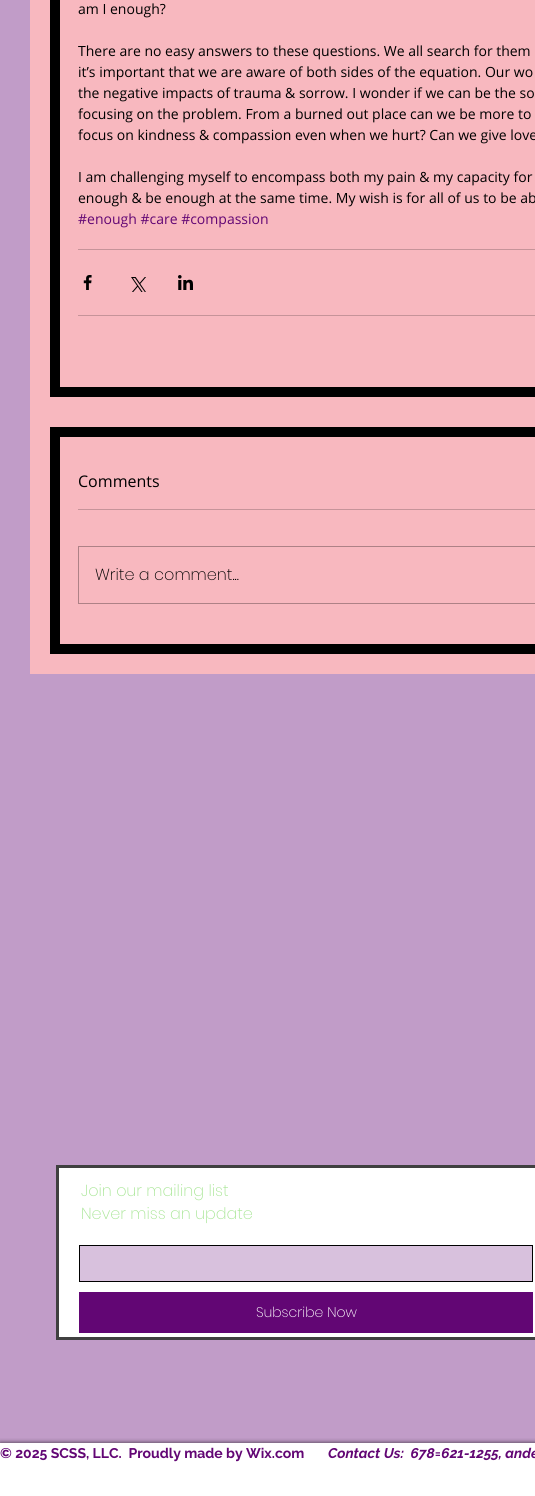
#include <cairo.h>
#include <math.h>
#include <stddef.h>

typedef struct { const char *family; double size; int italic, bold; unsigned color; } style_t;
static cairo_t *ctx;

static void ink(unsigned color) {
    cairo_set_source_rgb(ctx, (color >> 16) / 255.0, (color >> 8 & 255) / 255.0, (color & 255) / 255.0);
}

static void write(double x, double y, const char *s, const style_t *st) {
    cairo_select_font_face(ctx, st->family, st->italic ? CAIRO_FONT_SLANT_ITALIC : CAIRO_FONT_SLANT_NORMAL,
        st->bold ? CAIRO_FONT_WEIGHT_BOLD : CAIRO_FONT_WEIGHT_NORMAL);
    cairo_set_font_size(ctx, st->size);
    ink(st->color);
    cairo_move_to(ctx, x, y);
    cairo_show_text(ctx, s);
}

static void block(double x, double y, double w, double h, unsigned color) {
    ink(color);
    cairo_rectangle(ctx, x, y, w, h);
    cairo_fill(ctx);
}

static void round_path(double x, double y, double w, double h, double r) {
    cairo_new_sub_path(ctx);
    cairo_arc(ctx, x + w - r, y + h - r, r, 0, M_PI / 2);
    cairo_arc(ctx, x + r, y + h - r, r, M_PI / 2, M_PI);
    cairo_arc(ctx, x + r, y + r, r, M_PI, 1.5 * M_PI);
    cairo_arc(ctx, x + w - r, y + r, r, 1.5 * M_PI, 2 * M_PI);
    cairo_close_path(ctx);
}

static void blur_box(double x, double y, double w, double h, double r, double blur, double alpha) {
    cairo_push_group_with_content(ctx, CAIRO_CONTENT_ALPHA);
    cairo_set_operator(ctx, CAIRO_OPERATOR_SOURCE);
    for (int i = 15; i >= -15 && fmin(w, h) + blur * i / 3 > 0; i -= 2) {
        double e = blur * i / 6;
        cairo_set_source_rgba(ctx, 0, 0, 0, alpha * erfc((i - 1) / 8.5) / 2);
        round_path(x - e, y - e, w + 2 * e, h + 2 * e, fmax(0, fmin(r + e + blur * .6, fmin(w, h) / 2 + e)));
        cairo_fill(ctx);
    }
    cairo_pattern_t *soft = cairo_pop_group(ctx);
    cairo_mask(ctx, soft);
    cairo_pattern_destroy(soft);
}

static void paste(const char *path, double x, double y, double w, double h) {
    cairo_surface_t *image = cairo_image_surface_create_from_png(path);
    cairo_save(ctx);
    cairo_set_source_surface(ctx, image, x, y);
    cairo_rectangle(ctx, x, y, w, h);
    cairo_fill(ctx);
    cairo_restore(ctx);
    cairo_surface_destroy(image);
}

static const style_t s1 = {"Open Sans", 14, 0, 0, 0x000000};
static const style_t s2 = {"Open Sans", 14, 0, 0, 0x620674};
static const style_t s3 = {"Open Sans", 16, 0, 0, 0x000000};
static const style_t s4 = {"Poppins ExtraLight", 16, 0, 0, 0x000000};
static const style_t s5 = {"Poppins ExtraLight", 16, 0, 0, 0xa9e697};
static const style_t s6 = {"Poppins ExtraLight", 14, 0, 0, 0xffffff};
static const style_t s7 = {"Raleway", 14, 0, 1, 0x620674};
static const style_t s8 = {"Raleway", 14, 1, 1, 0x620674};

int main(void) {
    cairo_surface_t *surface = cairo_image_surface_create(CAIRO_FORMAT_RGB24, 535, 1496);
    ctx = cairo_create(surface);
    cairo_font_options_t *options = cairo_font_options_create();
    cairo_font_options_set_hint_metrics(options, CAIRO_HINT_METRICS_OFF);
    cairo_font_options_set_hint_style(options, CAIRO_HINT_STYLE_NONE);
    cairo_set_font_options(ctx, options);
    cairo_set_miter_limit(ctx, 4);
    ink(0xffffff);
    cairo_paint(ctx);
    block(0, 0, 535, 1443, 0xc19cc8);
    block(30, 0, 505, 674, 0xf8b8bf);
    cairo_rectangle(ctx, 55, -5, 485, 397);
    ink(0x000000);
    cairo_set_line_width(ctx, 10);
    cairo_stroke(ctx);
    write(78, 14, "am I enough?", &s1);
    write(78, 56, "There are no easy answers to these questions. We all search for them", &s1);
    write(78, 77, "it’s important that we are aware of both sides of the equation. Our wo", &s1);
    write(78, 98, "the negative impacts of trauma & sorrow. I wonder if we can be the so", &s1);
    write(78, 119, "focusing on the problem. From a burned out place can we be more to", &s1);
    write(78, 140, "focus on kindness & compassion even when we hurt? Can we give love", &s1);
    write(78, 182, "I am challenging myself to encompass both my pain & my capacity for", &s1);
    write(78, 203, "enough & be enough at the same time. My wish is for all of us to be ab", &s1);
    write(78, 224, "#enough #care #compassion", &s2);
    block(78, 249, 457, 1, 0xc69399);
    paste("pic1.png", 83, 275, 9, 15);
    paste("pic2.png", 131, 277, 15, 15);
    paste("pic3.png", 178, 275, 15, 15);
    block(78, 315, 457, 1, 0xc69399);
    cairo_rectangle(ctx, 55, 432, 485, 217);
    ink(0x000000);
    cairo_stroke(ctx);
    write(78, 487, "Comments", &s3);
    block(78, 509, 457, 1, 0xc69399);
    cairo_rectangle(ctx, 78.5, 546.5, 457, 57);
    ink(0xae8186);
    cairo_set_line_width(ctx, 1);
    cairo_stroke(ctx);
    write(95, 580, "Write a comment...", &s4);
    ink(0xffffff);
    cairo_rectangle(ctx, 57.5, 1166.5, 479, 172);
    cairo_fill_preserve(ctx);
    ink(0x404040);
    cairo_set_line_width(ctx, 3);
    cairo_stroke(ctx);
    write(81, 1196, "Join our mailing list", &s5);
    write(81, 1219, "Never miss an update", &s5);
    ink(0xd8c1dd);
    cairo_rectangle(ctx, 79.5, 1245.5, 453, 36);
    cairo_fill_preserve(ctx);
    ink(0x000000);
    cairo_set_line_width(ctx, 1);
    cairo_stroke(ctx);
    block(79, 1292, 454, 41, 0x620674);
    write(256, 1317, "Subscribe Now", &s6);
    cairo_save(ctx);
    cairo_rectangle(ctx, 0, 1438, 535, 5);
    cairo_clip(ctx);
    ink(0x000000);
    blur_box(0, 1443, 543, 53, 0, 2.5, 0.7);
    cairo_restore(ctx);
    write(0, 1458, "© 2025 SCSS, LLC.  Proudly made by Wix.com", &s7);
    write(328, 1458, "Contact Us:  678=621-1255, ande", &s8);
    cairo_surface_write_to_png(surface, "screenshot.png");
    cairo_font_options_destroy(options);
    cairo_destroy(ctx);
    cairo_surface_destroy(surface);
    return 0;
}
